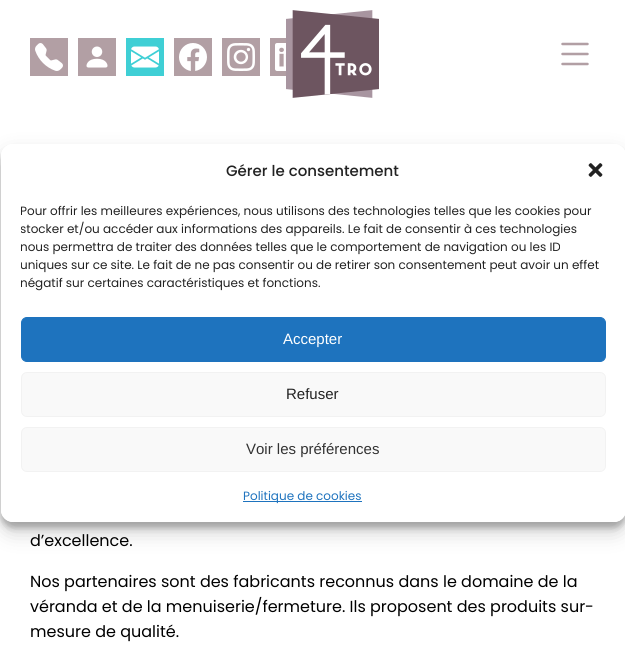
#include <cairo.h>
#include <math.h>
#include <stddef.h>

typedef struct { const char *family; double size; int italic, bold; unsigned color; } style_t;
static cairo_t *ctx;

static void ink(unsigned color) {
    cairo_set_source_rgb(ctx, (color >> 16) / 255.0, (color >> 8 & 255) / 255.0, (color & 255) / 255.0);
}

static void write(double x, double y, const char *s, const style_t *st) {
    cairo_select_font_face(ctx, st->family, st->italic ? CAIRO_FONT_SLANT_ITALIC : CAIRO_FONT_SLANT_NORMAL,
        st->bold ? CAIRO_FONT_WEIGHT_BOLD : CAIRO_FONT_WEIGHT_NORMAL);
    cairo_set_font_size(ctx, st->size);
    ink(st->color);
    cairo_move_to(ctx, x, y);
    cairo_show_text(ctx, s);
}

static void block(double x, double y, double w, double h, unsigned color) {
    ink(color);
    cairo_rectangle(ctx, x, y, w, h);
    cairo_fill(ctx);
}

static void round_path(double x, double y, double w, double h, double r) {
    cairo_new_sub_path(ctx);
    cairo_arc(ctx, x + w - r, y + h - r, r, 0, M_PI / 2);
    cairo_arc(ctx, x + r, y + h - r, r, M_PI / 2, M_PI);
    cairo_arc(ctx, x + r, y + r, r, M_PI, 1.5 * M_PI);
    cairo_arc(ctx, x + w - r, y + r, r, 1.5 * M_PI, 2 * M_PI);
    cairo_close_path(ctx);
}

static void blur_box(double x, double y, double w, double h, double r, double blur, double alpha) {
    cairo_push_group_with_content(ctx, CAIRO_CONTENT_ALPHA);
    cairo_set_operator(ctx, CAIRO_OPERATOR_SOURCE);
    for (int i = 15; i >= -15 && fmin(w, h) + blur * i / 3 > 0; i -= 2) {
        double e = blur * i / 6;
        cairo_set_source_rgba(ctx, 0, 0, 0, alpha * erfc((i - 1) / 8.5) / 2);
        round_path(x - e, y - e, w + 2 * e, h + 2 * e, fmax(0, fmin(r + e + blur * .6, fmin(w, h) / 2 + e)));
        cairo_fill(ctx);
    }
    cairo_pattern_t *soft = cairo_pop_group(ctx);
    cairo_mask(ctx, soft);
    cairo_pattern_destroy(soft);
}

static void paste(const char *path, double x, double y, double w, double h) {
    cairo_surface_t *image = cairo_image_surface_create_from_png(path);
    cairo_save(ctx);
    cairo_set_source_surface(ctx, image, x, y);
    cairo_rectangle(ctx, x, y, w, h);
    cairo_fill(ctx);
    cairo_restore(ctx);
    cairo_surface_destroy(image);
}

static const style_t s1 = {"Poppins Medium", 15, 0, 0, 0x222222};
static const style_t s2 = {"Poppins", 12, 0, 0, 0x222222};
static const style_t s3 = {"Liberation Sans", 15, 0, 0, 0xffffff};
static const style_t s4 = {"Liberation Sans", 15, 0, 0, 0x222222};
static const style_t s5 = {"Liberation Sans", 15, 0, 0, 0x333333};
static const style_t s6 = {"Poppins", 12, 0, 0, 0x1e73be};
static const style_t s7 = {"Poppins", 16, 0, 0, 0x000000};

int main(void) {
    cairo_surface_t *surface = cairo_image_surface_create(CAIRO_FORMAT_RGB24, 625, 665);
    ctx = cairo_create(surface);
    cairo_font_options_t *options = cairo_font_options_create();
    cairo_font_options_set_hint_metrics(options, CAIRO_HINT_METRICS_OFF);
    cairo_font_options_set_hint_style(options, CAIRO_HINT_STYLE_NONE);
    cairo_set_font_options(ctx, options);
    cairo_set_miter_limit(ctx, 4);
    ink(0xffffff);
    cairo_paint(ctx);
    block(30, 38, 38, 38, 0xb29fa4);
    paste("pic1.png", 35, 43, 28, 28);
    block(78, 38, 38, 38, 0xb29fa4);
    paste("pic2.png", 86, 46, 22, 22);
    block(126, 38, 38, 38, 0x3fcfd5);
    paste("pic3.png", 131, 46, 28, 22);
    block(174, 38, 38, 38, 0xb29fa4);
    paste("pic4.png", 179, 43, 28, 28);
    block(222, 38, 38, 38, 0xb29fa4);
    paste("pic5.png", 227, 43, 28, 28);
    block(270, 38, 16, 38, 0xb29fa4);
    paste("pic6.png", 275, 43, 11, 28);
    paste("pic7.png", 286, 10, 93, 88);
    paste("pic8.png", 561, 42, 28, 24);
    cairo_save(ctx);
    cairo_set_fill_rule(ctx, CAIRO_FILL_RULE_EVEN_ODD);
    cairo_new_path(ctx);
    cairo_move_to(ctx, 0, 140);
    cairo_line_to(ctx, 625, 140);
    cairo_line_to(ctx, 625, 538);
    cairo_line_to(ctx, 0, 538);
    cairo_close_path(ctx);
    cairo_move_to(ctx, 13, 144);
    cairo_line_to(ctx, 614, 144);
    cairo_curve_to(ctx, 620.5, 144, 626, 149.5, 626, 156);
    cairo_line_to(ctx, 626, 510);
    cairo_curve_to(ctx, 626, 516.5, 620.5, 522, 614, 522);
    cairo_line_to(ctx, 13, 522);
    cairo_curve_to(ctx, 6.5, 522, 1, 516.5, 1, 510);
    cairo_line_to(ctx, 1, 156);
    cairo_curve_to(ctx, 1, 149.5, 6.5, 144, 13, 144);
    cairo_close_path(ctx);
    cairo_clip(ctx);
    ink(0x000000);
    blur_box(1, 150, 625, 378, 12, 3, 0.23);
    cairo_restore(ctx);
    cairo_save(ctx);
    cairo_set_fill_rule(ctx, CAIRO_FILL_RULE_EVEN_ODD);
    cairo_new_path(ctx);
    cairo_move_to(ctx, 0, 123);
    cairo_line_to(ctx, 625, 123);
    cairo_line_to(ctx, 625, 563);
    cairo_line_to(ctx, 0, 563);
    cairo_close_path(ctx);
    cairo_move_to(ctx, 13, 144);
    cairo_line_to(ctx, 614, 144);
    cairo_curve_to(ctx, 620.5, 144, 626, 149.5, 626, 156);
    cairo_line_to(ctx, 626, 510);
    cairo_curve_to(ctx, 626, 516.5, 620.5, 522, 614, 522);
    cairo_line_to(ctx, 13, 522);
    cairo_curve_to(ctx, 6.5, 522, 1, 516.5, 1, 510);
    cairo_line_to(ctx, 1, 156);
    cairo_curve_to(ctx, 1, 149.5, 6.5, 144, 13, 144);
    cairo_close_path(ctx);
    cairo_clip(ctx);
    ink(0x000000);
    blur_box(1, 154, 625, 378, 12, 10, 0.19);
    cairo_restore(ctx);
    ink(0xffffff);
    round_path(1, 144, 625, 378, 12);
    cairo_fill(ctx);
    write(226, 176, "Gérer le consentement", &s1);
    paste("pic9.png", 588, 163, 15, 14);
    cairo_save(ctx);
    cairo_rectangle(ctx, 21, 202, 585, 95);
    cairo_clip(ctx);
    write(20, 215, "Pour offrir les meilleures expériences, nous utilisons des technologies telles que les cookies pour", &s2);
    write(20, 233, "stocker et/ou accéder aux informations des appareils. Le fait de consentir à ces technologies", &s2);
    write(20, 251, "nous permettra de traiter des données telles que le comportement de navigation ou les ID", &s2);
    write(20, 269, "uniques sur ce site. Le fait de ne pas consentir ou de retirer son consentement peut avoir un effet", &s2);
    write(20, 287, "négatif sur certaines caractéristiques et fonctions.", &s2);
    cairo_restore(ctx);
    ink(0x1e73be);
    round_path(21.5, 317.5, 584, 44, 5.5);
    cairo_fill_preserve(ctx);
    cairo_set_line_width(ctx, 1);
    cairo_stroke(ctx);
    write(283, 344, "Accepter", &s3);
    ink(0xf9f9f9);
    round_path(21.5, 372.5, 584, 44, 5.5);
    cairo_fill_preserve(ctx);
    ink(0xf2f2f2);
    cairo_stroke(ctx);
    write(286, 399, "Refuser", &s4);
    ink(0xf9f9f9);
    round_path(21.5, 427.5, 584, 44, 5.5);
    cairo_fill_preserve(ctx);
    ink(0xf2f2f2);
    cairo_stroke(ctx);
    write(246, 454, "Voir les préférences", &s5);
    block(243, 501, 119, 1, 0x1e73be);
    write(243, 500, "Politique de cookies", &s6);
    write(30, 546, "d’excellence.", &s7);
    write(30, 587, "Nos partenaires sont des fabricants reconnus dans le domaine de la", &s7);
    write(30, 612, "véranda et de la menuiserie/fermeture. Ils proposent des produits sur-", &s7);
    write(30, 637, "mesure de qualité.", &s7);
    cairo_surface_write_to_png(surface, "screenshot.png");
    cairo_font_options_destroy(options);
    cairo_destroy(ctx);
    cairo_surface_destroy(surface);
    return 0;
}
